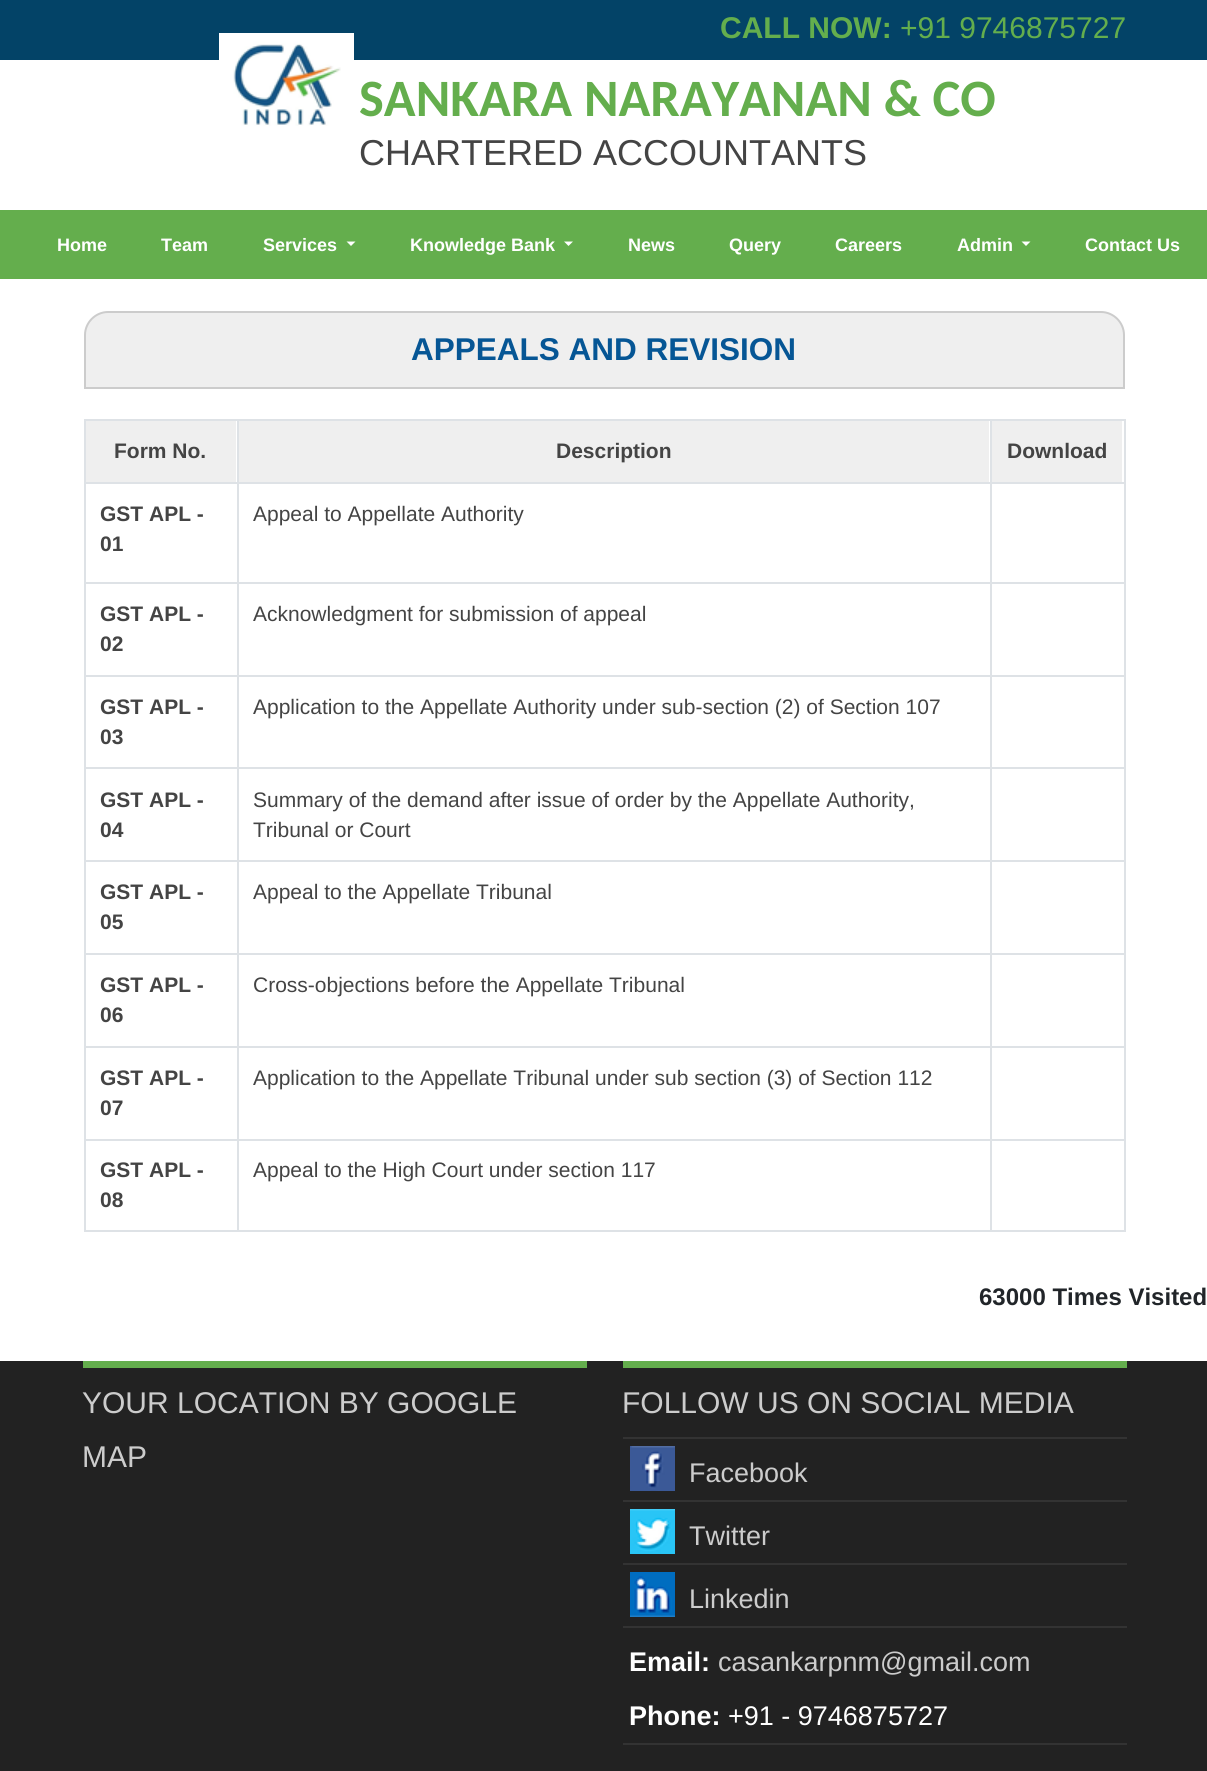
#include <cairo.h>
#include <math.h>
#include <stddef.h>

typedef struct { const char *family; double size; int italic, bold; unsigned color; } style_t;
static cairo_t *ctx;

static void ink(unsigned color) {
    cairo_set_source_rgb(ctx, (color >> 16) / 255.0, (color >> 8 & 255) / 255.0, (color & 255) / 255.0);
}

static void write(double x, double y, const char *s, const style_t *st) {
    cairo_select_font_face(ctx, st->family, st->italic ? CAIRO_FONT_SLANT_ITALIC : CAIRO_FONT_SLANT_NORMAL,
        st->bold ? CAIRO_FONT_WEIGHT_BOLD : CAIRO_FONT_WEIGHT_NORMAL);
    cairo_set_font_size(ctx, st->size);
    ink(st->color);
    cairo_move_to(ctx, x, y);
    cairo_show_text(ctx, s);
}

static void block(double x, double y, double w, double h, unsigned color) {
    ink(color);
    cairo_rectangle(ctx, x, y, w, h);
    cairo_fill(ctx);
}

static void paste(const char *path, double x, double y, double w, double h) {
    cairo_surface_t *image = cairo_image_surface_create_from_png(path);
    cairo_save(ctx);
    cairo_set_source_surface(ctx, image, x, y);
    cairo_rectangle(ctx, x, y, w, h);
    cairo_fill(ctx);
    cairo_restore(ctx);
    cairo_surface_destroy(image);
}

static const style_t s1 = {"Liberation Sans", 30, 0, 1, 0x64ae4d};
static const style_t s2 = {"Liberation Sans", 30, 0, 0, 0x64ae4d};
static const style_t s3 = {"Carlito", 52.5, 0, 1, 0x64ae4d};
static const style_t s4 = {"Liberation Sans", 36, 0, 0, 0x444444};
static const style_t s5 = {"Liberation Sans", 18, 0, 1, 0xffffff};
static const style_t s6 = {"Liberation Sans", 31.5, 0, 1, 0x065695};
static const style_t s7 = {"Liberation Sans", 21, 0, 1, 0x444444};
static const style_t s8 = {"Liberation Sans", 21, 0, 0, 0x444444};
static const style_t s9 = {"Liberation Sans", 24, 0, 1, 0x212529};
static const style_t s10 = {"Liberation Sans", 30, 0, 0, 0xcccccc};
static const style_t s11 = {"Liberation Sans", 27, 0, 0, 0xcccccc};
static const style_t s12 = {"Liberation Sans", 27, 0, 1, 0xffffff};
static const style_t s13 = {"Liberation Sans", 27, 0, 0, 0xffffff};

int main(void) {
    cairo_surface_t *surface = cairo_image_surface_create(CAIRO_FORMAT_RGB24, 1207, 1771);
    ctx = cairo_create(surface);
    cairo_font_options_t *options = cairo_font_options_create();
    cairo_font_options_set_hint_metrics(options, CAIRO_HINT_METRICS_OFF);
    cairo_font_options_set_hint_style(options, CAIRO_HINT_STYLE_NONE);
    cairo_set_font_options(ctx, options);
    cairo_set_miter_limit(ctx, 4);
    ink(0xffffff);
    cairo_paint(ctx);
    block(0, 0, 1207, 60, 0x034367);
    write(720, 38, "CALL NOW:", &s1);
    write(900, 38, "+91 9746875727", &s2);
    paste("pic1.png", 219, 33, 135, 93);
    write(359, 116, "SANKARA NARAYANAN & CO", &s3);
    write(359, 165, "CHARTERED ACCOUNTANTS", &s4);
    block(0, 210, 1207, 69, 0x64ae4d);
    write(57, 251, "Home", &s5);
    write(161, 251, "Team", &s5);
    write(263, 251, "Services", &s5);
    cairo_new_path(ctx);
    cairo_move_to(ctx, 346.5, 241.5);
    cairo_line_to(ctx, 355.5, 241.5);
    cairo_line_to(ctx, 351, 246);
    cairo_close_path(ctx);
    cairo_fill(ctx);
    write(410, 251, "Knowledge Bank", &s5);
    cairo_new_path(ctx);
    cairo_move_to(ctx, 564, 241.5);
    cairo_line_to(ctx, 573, 241.5);
    cairo_line_to(ctx, 568.5, 246);
    cairo_close_path(ctx);
    cairo_fill(ctx);
    write(628, 251, "News", &s5);
    write(729, 251, "Query", &s5);
    write(835, 251, "Careers", &s5);
    write(957, 251, "Admin", &s5);
    cairo_new_path(ctx);
    cairo_move_to(ctx, 1021.5, 241.5);
    cairo_line_to(ctx, 1030.5, 241.5);
    cairo_line_to(ctx, 1026, 246);
    cairo_close_path(ctx);
    cairo_fill(ctx);
    write(1085, 251, "Contact Us", &s5);
    ink(0xefefef);
    cairo_new_path(ctx);
    cairo_move_to(ctx, 108, 312);
    cairo_line_to(ctx, 1101, 312);
    cairo_curve_to(ctx, 1113.5, 312, 1124, 322.5, 1124, 335);
    cairo_line_to(ctx, 1124, 388);
    cairo_line_to(ctx, 85, 388);
    cairo_line_to(ctx, 85, 335);
    cairo_curve_to(ctx, 85, 322.5, 95.5, 312, 108, 312);
    cairo_close_path(ctx);
    cairo_fill_preserve(ctx);
    ink(0xcccccc);
    cairo_stroke(ctx);
    write(411, 360, "APPEALS AND REVISION", &s6);
    block(84, 419, 1041, 2, 0xdee2e6);
    block(1124, 419, 2, 813, 0xdee2e6);
    block(84, 1230, 1041, 2, 0xdee2e6);
    block(84, 419, 2, 813, 0xdee2e6);
    block(86, 421, 150, 61, 0xefefef);
    write(114, 458, "Form No.", &s7);
    block(239, 421, 750, 61, 0xefefef);
    write(556, 458, "Description", &s7);
    block(992, 421, 130, 61, 0xefefef);
    write(1007, 458, "Download", &s7);
    block(84, 482, 1041, 2, 0xdee2e6);
    write(100, 521, "GST APL -", &s7);
    write(100, 551, "01", &s7);
    write(253, 521, "Appeal to Appellate Authority", &s8);
    block(84, 582, 1041, 2, 0xdee2e6);
    write(100, 621, "GST APL -", &s7);
    write(100, 651, "02", &s7);
    write(253, 621, "Acknowledgment for submission of appeal", &s8);
    block(84, 675, 1041, 2, 0xdee2e6);
    write(100, 714, "GST APL -", &s7);
    write(100, 744, "03", &s7);
    write(253, 714, "Application to the Appellate Authority under sub-section (2) of Section 107", &s8);
    block(84, 767, 1041, 2, 0xdee2e6);
    write(100, 807, "GST APL -", &s7);
    write(100, 837, "04", &s7);
    write(253, 807, "Summary of the demand after issue of order by the Appellate Authority,", &s8);
    write(253, 837, "Tribunal or Court", &s8);
    block(84, 860, 1041, 2, 0xdee2e6);
    write(100, 899, "GST APL -", &s7);
    write(100, 929, "05", &s7);
    write(253, 899, "Appeal to the Appellate Tribunal", &s8);
    block(84, 953, 1041, 2, 0xdee2e6);
    write(100, 992, "GST APL -", &s7);
    write(100, 1022, "06", &s7);
    write(253, 992, "Cross-objections before the Appellate Tribunal", &s8);
    block(84, 1046, 1041, 2, 0xdee2e6);
    write(100, 1085, "GST APL -", &s7);
    write(100, 1115, "07", &s7);
    write(253, 1085, "Application to the Appellate Tribunal under sub section (3) of Section 112", &s8);
    block(84, 1139, 1041, 2, 0xdee2e6);
    write(100, 1177, "GST APL -", &s7);
    write(100, 1207, "08", &s7);
    block(237, 419, 2, 813, 0xdee2e6);
    write(253, 1177, "Appeal to the High Court under section 117", &s8);
    block(990, 419, 2, 813, 0xdee2e6);
    write(979, 1305, "63000 Times Visited", &s9);
    block(0, 1361, 1207, 410, 0x222222);
    block(83, 1361, 504, 7, 0x64ae4d);
    write(82, 1413, "YOUR LOCATION BY GOOGLE", &s10);
    write(82, 1467, "MAP", &s10);
    block(623, 1361, 504, 7, 0x64ae4d);
    block(623, 1437, 504, 2, 0x333333);
    write(622, 1413, "FOLLOW US ON SOCIAL MEDIA", &s10);
    block(623, 1500, 504, 2, 0x333333);
    paste("pic2.png", 630, 1446, 45, 45);
    write(689, 1482, "Facebook", &s11);
    block(623, 1563, 504, 2, 0x333333);
    paste("pic3.png", 630, 1509, 45, 45);
    write(689, 1545, "Twitter", &s11);
    block(623, 1626, 504, 2, 0x333333);
    paste("pic4.png", 630, 1572, 45, 45);
    write(689, 1608, "Linkedin", &s11);
    block(623, 1743, 504, 2, 0x333333);
    write(629, 1671, "Email:", &s12);
    write(718, 1671, "casankarpnm@gmail.com", &s11);
    write(629, 1725, "Phone:", &s12);
    write(728, 1725, "+91 - 9746875727", &s13);
    cairo_surface_write_to_png(surface, "screenshot.png");
    cairo_font_options_destroy(options);
    cairo_destroy(ctx);
    cairo_surface_destroy(surface);
    return 0;
}
